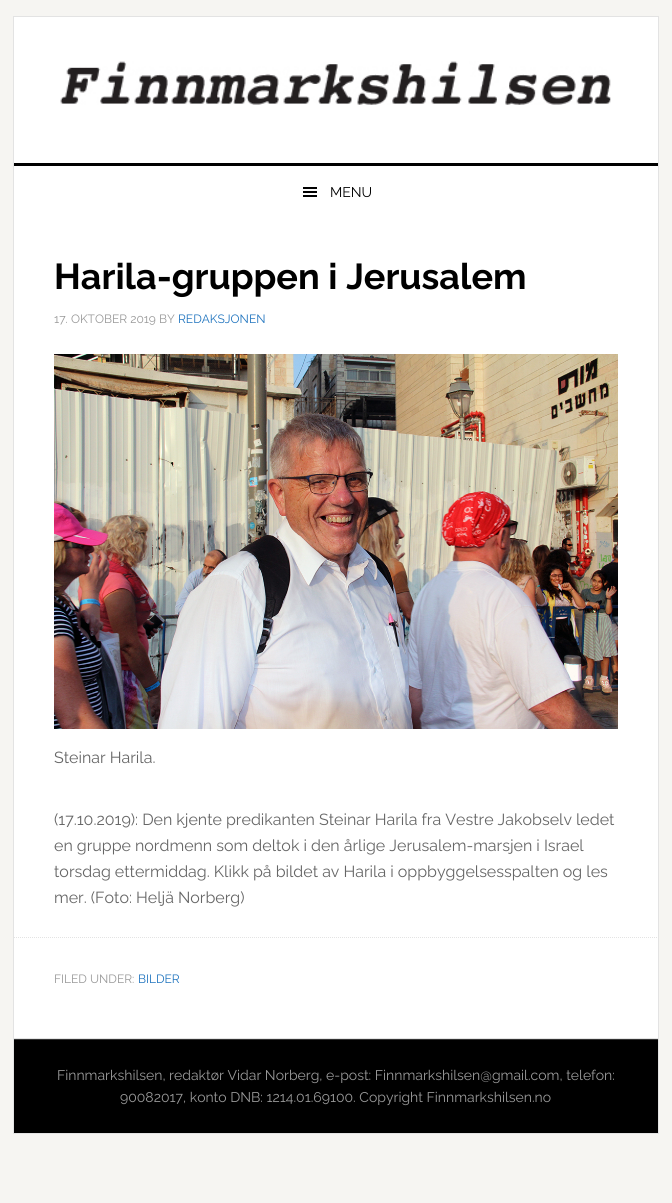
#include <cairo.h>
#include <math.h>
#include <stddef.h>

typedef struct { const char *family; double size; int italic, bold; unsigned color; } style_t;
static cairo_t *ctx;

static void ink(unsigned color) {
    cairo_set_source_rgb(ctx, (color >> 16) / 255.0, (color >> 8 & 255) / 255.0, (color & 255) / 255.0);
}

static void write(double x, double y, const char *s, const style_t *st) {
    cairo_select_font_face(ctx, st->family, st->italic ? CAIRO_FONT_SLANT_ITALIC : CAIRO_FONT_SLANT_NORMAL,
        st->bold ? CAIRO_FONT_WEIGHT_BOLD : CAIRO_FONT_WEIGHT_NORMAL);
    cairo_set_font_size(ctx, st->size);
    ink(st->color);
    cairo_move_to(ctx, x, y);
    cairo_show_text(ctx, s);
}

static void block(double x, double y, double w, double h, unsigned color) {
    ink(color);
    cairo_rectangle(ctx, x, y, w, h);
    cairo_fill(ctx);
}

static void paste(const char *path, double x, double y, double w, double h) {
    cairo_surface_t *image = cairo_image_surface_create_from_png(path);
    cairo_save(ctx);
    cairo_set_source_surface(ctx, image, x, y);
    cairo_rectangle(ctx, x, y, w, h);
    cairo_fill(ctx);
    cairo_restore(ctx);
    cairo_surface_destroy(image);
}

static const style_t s1 = {"Raleway", 14, 0, 0, 0x000000};
static const style_t s2 = {"Raleway", 36, 0, 1, 0x000000};
static const style_t s3 = {"Raleway", 12, 0, 0, 0x999999};
static const style_t s4 = {"Raleway", 12, 0, 0, 0x1e73be};
static const style_t s5 = {"Raleway", 16, 0, 0, 0x666666};
static const style_t s6 = {"Raleway", 14, 0, 0, 0x999999};

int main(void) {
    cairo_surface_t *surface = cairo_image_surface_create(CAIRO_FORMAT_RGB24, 672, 1203);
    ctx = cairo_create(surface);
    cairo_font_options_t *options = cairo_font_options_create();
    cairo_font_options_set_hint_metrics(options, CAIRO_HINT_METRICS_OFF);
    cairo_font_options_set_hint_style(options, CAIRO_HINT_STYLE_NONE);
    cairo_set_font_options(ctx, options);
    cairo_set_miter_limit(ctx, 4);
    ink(0xf6f5f2);
    cairo_paint(ctx);
    block(14, 17, 644, 1021, 0xffffff);
    cairo_rectangle(ctx, 13.5, 16.5, 645, 1117);
    ink(0xe3e3e3);
    cairo_set_line_width(ctx, 1);
    cairo_stroke(ctx);
    block(14, 163, 644, 3, 0x000000);
    paste("pic1.png", 60, 61, 551, 44);
    paste("pic2.png", 303, 187, 14, 10);
    write(330, 197, "MENU", &s1);
    block(14, 1038, 644, 1, 0xe3e3e3);
    write(54, 289, "Harila-gruppen i Jerusalem", &s2);
    write(54, 323, "17. OKTOBER 2019 BY", &s3);
    write(178, 323, "REDAKSJONEN", &s4);
    paste("pic3.png", 54, 354, 564, 375);
    write(54, 763, "Steinar Harila.", &s5);
    write(54, 825, "(17.10.2019): Den kjente predikanten Steinar Harila fra Vestre Jakobselv ledet", &s5);
    write(54, 851, "en gruppe nordmenn som deltok i den årlige Jerusalem-marsjen i Israel", &s5);
    write(54, 877, "torsdag ettermiddag. Klikk på bildet av Harila i oppbyggelsesspalten og les", &s5);
    write(54, 903, "mer. (Foto: Heljä Norberg)", &s5);
    cairo_new_path(ctx);
    cairo_move_to(ctx, 14, 937.5);
    cairo_line_to(ctx, 658, 937.5);
    ink(0xe3e3e3);
    cairo_set_dash(ctx, (double[]){1, 1}, 2, 0);
    cairo_stroke(ctx);
    write(54, 983, "FILED UNDER:", &s3);
    write(138, 983, "BILDER", &s4);
    block(14, 1040, 644, 93, 0x000000);
    block(14, 1039, 644, 1, 0x333333);
    write(57, 1080, "Finnmarkshilsen, redaktør Vidar Norberg, e-post: Finnmarkshilsen@gmail.com, telefon:", &s6);
    write(120, 1102, "90082017, konto DNB: 1214.01.69100. Copyright Finnmarkshilsen.no", &s6);
    cairo_surface_write_to_png(surface, "screenshot.png");
    cairo_font_options_destroy(options);
    cairo_destroy(ctx);
    cairo_surface_destroy(surface);
    return 0;
}
